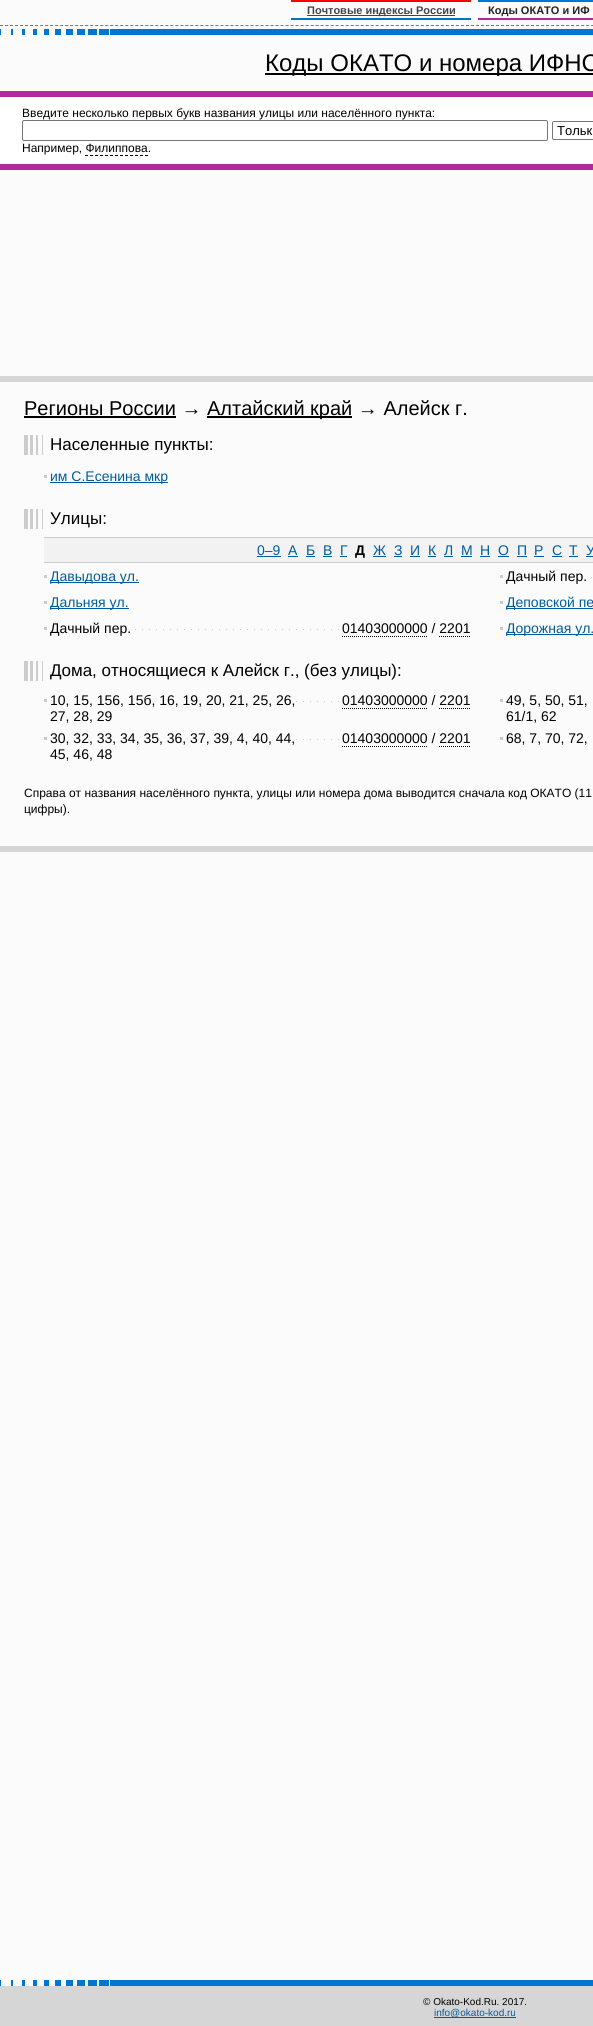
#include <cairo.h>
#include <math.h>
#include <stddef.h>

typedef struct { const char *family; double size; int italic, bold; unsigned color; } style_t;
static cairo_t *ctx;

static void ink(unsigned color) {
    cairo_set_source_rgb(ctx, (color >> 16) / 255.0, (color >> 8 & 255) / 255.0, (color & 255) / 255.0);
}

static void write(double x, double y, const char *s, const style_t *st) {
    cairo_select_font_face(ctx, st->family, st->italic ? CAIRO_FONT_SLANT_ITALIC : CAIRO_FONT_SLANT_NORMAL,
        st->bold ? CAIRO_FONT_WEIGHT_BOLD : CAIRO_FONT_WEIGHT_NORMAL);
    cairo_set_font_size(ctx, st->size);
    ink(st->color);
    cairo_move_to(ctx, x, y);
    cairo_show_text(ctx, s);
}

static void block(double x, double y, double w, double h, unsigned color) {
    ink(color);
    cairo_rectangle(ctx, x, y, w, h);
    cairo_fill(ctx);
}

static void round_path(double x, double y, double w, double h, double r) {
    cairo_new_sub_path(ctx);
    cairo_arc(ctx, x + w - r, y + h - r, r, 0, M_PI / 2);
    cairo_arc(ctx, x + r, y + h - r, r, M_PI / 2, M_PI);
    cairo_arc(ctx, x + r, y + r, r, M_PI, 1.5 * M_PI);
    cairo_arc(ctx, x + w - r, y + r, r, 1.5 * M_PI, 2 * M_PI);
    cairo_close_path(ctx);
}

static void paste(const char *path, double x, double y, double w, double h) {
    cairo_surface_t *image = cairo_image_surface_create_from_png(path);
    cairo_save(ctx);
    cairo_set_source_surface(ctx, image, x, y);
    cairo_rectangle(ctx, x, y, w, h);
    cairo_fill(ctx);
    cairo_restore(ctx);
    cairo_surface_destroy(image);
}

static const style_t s1 = {"Liberation Sans", 11, 0, 1, 0x444444};
static const style_t s2 = {"Liberation Sans", 11, 0, 1, 0x222222};
static const style_t s3 = {"Liberation Sans", 24, 0, 0, 0x000000};
static const style_t s4 = {"Liberation Sans", 12, 0, 0, 0x000000};
static const style_t s5 = {"Liberation Sans", 13, 0, 0, 0x000000};
static const style_t s6 = {"Liberation Sans", 20, 0, 0, 0x000000};
static const style_t s7 = {"Liberation Sans", 17, 0, 0, 0x000000};
static const style_t s8 = {"Liberation Sans", 14, 0, 0, 0x015c9a};
static const style_t s9 = {"Liberation Sans", 14, 0, 1, 0x000000};
static const style_t s10 = {"Liberation Sans", 14, 0, 0, 0x000000};
static const style_t s11 = {"Liberation Sans", 10, 0, 0, 0x000000};
static const style_t s12 = {"Liberation Sans", 10, 0, 0, 0x015c9a};

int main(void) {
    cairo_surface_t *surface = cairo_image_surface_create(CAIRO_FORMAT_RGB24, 593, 2026);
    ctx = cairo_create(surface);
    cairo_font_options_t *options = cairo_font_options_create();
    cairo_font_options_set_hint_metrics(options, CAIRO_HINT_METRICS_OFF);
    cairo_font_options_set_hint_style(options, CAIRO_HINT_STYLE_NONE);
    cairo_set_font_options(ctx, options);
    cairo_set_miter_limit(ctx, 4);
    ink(0xfbfbfb);
    cairo_paint(ctx);
    cairo_new_path(ctx);
    cairo_move_to(ctx, 0, 25.5);
    cairo_line_to(ctx, 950, 25.5);
    ink(0x777777);
    cairo_set_line_width(ctx, 1);
    cairo_set_dash(ctx, (double[]){3, 2.01}, 2, 0);
    cairo_stroke(ctx);
    block(291, 0, 180, 2, 0xff0000);
    block(291, 18, 180, 2, 0x0174c0);
    block(307, 15, 148, 1, 0x444444);
    write(307, 14, "Почтовые индексы России", &s1);
    block(478, 0, 115, 2, 0x0076d1);
    block(478, 18, 115, 2, 0xb2289d);
    write(488, 14, "Коды ОКАТО и ИФ", &s2);
    block(0, 29, 593, 6, 0x0076d1);
    paste("pic1.png", 1, 29, 109, 6);
    block(265, 73, 328, 2, 0x000000);
    write(265, 71, "Коды ОКАТО и номера ИФНС", &s3);
    block(0, 91, 593, 6, 0xb2289d);
    block(0, 97, 593, 67, 0xffffff);
    write(22, 117, "Введите несколько первых букв названия улицы или населённого пункта:", &s4);
    round_path(22.5, 120.5, 525, 20, 1.5);
    ink(0x767676);
    cairo_set_dash(ctx, NULL, 0, 0);
    cairo_stroke(ctx);
    round_path(552.5, 121.5, 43, 18, 1.5);
    cairo_stroke(ctx);
    write(557, 135, "Тольк", &s5);
    write(22, 152, "Например, Филиппова.", &s4);
    cairo_new_path(ctx);
    cairo_move_to(ctx, 85, 155.5);
    cairo_line_to(ctx, 148, 155.5);
    cairo_set_dash(ctx, (double[]){3, 2}, 2, 0);
    cairo_stroke(ctx);
    block(0, 164, 593, 6, 0xb2289d);
    block(0, 376, 593, 6, 0xd6d6d6);
    write(24, 415, "Регионы России →", &s6);
    block(24, 416, 152, 2, 0x000000);
    block(207, 416, 145, 2, 0x000000);
    write(207, 415, "Алтайский край → Алейск г.", &s6);
    paste("pic2.png", 24, 435, 19, 20);
    write(50, 450, "Населенные пункты:", &s7);
    block(44, 475, 3, 3, 0xcccccc);
    block(50, 482, 118, 1, 0x015c9a);
    write(50, 481, "им С.Есенина мкр", &s8);
    paste("pic2.png", 24, 509, 19, 20);
    write(50, 524, "Улицы:", &s7);
    block(44, 538, 549, 24, 0xf2f2f2);
    block(44, 537, 549, 1, 0xcccccc);
    block(44, 562, 549, 1, 0xcccccc);
    write(257, 555, "0–9", &s8);
    block(257, 556, 24, 1, 0x015c9a);
    write(288, 555, "А", &s8);
    block(288, 556, 10, 1, 0x015c9a);
    write(306, 555, "Б", &s8);
    block(306, 556, 9, 1, 0x015c9a);
    write(323, 555, "В", &s8);
    block(323, 556, 9, 1, 0x015c9a);
    write(340, 555, "Г", &s8);
    block(340, 556, 7, 1, 0x015c9a);
    write(355, 555, "Д", &s9);
    write(373, 555, "Ж", &s8);
    block(373, 556, 13, 1, 0x015c9a);
    write(394, 555, "З", &s8);
    block(394, 556, 8, 1, 0x015c9a);
    write(410, 555, "И", &s8);
    block(410, 556, 10, 1, 0x015c9a);
    write(428, 555, "К", &s8);
    block(428, 556, 8, 1, 0x015c9a);
    write(444, 555, "Л", &s8);
    block(444, 556, 9, 1, 0x015c9a);
    write(461, 555, "М", &s8);
    block(461, 556, 11, 1, 0x015c9a);
    write(480, 555, "Н", &s8);
    block(480, 556, 10, 1, 0x015c9a);
    write(498, 555, "О", &s8);
    block(498, 556, 11, 1, 0x015c9a);
    write(517, 555, "П", &s8);
    block(517, 556, 10, 1, 0x015c9a);
    write(534, 555, "Р", &s8);
    block(534, 556, 10, 1, 0x015c9a);
    write(552, 555, "С", &s8);
    block(552, 556, 10, 1, 0x015c9a);
    write(569, 555, "Т", &s8);
    block(569, 556, 9, 1, 0x015c9a);
    write(586, 555, "У", &s8);
    block(586, 556, 7, 1, 0x015c9a);
    block(44, 575, 3, 3, 0xcccccc);
    block(50, 582, 89, 1, 0x015c9a);
    write(50, 581, "Давыдова ул.", &s8);
    block(44, 601, 3, 3, 0xcccccc);
    block(50, 608, 79, 1, 0x015c9a);
    write(50, 607, "Дальняя ул.", &s8);
    paste("pic3.png", 135, 629, 204, 1);
    block(44, 627, 3, 3, 0xcccccc);
    write(50, 633, "Дачный пер.", &s10);
    cairo_new_path(ctx);
    cairo_move_to(ctx, 342, 636.5);
    cairo_line_to(ctx, 427, 636.5);
    cairo_set_dash(ctx, (double[]){1, 1}, 2, 0);
    cairo_stroke(ctx);
    write(342, 633, "01403000000 / 2201", &s10);
    cairo_new_path(ctx);
    cairo_move_to(ctx, 439, 636.5);
    cairo_line_to(ctx, 470, 636.5);
    cairo_stroke(ctx);
    paste("pic4.png", 591, 577, 1, 1);
    block(500, 575, 3, 3, 0xcccccc);
    write(506, 581, "Дачный пер.", &s10);
    block(500, 601, 3, 3, 0xcccccc);
    block(506, 608, 87, 1, 0x015c9a);
    write(506, 607, "Деповской пе", &s8);
    block(500, 627, 3, 3, 0xcccccc);
    block(506, 634, 87, 1, 0x015c9a);
    write(506, 633, "Дорожная ул.", &s8);
    paste("pic2.png", 24, 661, 19, 20);
    write(50, 676, "Дома, относящиеся к Алейск г., (без улицы):", &s7);
    paste("pic5.png", 296, 701, 43, 1);
    block(44, 699, 3, 3, 0xcccccc);
    write(50, 705, "10, 15, 156, 15б, 16, 19, 20, 21, 25, 26,", &s10);
    write(50, 721, "27, 28, 29", &s10);
    cairo_new_path(ctx);
    cairo_move_to(ctx, 342, 708.5);
    cairo_line_to(ctx, 427, 708.5);
    cairo_stroke(ctx);
    write(342, 705, "01403000000 / 2201", &s10);
    cairo_new_path(ctx);
    cairo_move_to(ctx, 439, 708.5);
    cairo_line_to(ctx, 470, 708.5);
    cairo_stroke(ctx);
    paste("pic5.png", 296, 739, 43, 1);
    block(44, 737, 3, 3, 0xcccccc);
    write(50, 743, "30, 32, 33, 34, 35, 36, 37, 39, 4, 40, 44,", &s10);
    write(50, 759, "45, 46, 48", &s10);
    cairo_new_path(ctx);
    cairo_move_to(ctx, 342, 746.5);
    cairo_line_to(ctx, 427, 746.5);
    cairo_stroke(ctx);
    write(342, 743, "01403000000 / 2201", &s10);
    cairo_new_path(ctx);
    cairo_move_to(ctx, 439, 746.5);
    cairo_line_to(ctx, 470, 746.5);
    cairo_stroke(ctx);
    block(500, 699, 3, 3, 0xcccccc);
    write(506, 705, "49, 5, 50, 51,", &s10);
    write(506, 721, "61/1, 62", &s10);
    block(500, 737, 3, 3, 0xcccccc);
    write(506, 743, "68, 7, 70, 72,", &s10);
    write(24, 797, "Справа от названия населённого пункта, улицы или номера дома выводится сначала код ОКАТО (11", &s4);
    write(24, 813, "цифры).", &s4);
    block(0, 846, 593, 6, 0xd6d6d6);
    block(0, 1980, 593, 6, 0x0076d1);
    paste("pic1.png", 1, 1980, 109, 6);
    block(0, 1986, 593, 40, 0xd6d6d6);
    write(423, 2005, "© Okato-Kod.Ru. 2017.", &s11);
    block(434, 2017, 82, 1, 0x015c9a);
    write(434, 2016, "info@okato-kod.ru", &s12);
    cairo_surface_write_to_png(surface, "screenshot.png");
    cairo_font_options_destroy(options);
    cairo_destroy(ctx);
    cairo_surface_destroy(surface);
    return 0;
}
